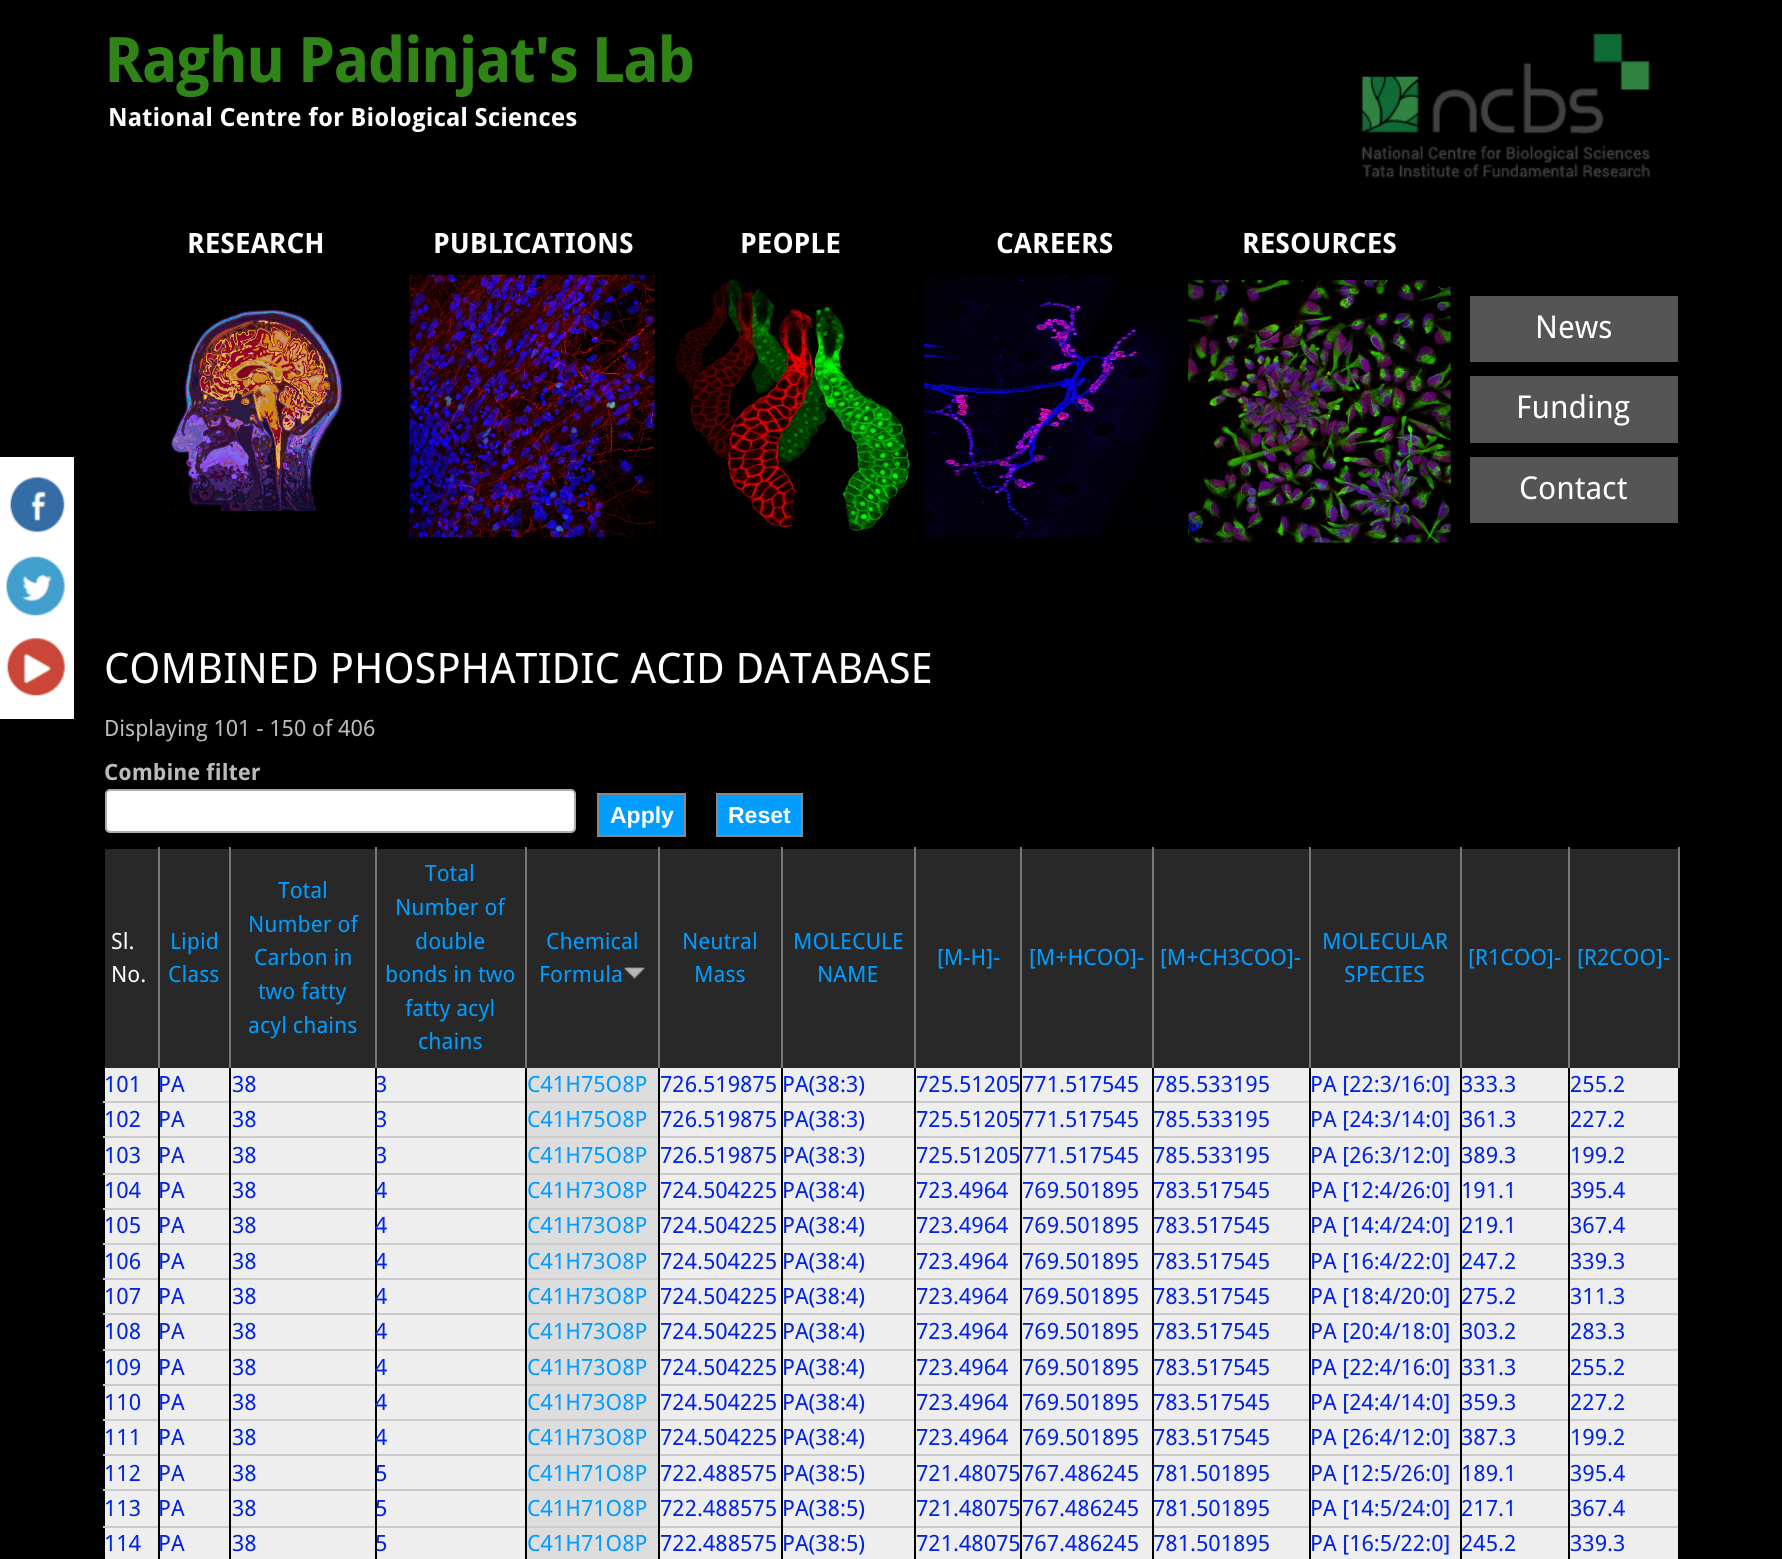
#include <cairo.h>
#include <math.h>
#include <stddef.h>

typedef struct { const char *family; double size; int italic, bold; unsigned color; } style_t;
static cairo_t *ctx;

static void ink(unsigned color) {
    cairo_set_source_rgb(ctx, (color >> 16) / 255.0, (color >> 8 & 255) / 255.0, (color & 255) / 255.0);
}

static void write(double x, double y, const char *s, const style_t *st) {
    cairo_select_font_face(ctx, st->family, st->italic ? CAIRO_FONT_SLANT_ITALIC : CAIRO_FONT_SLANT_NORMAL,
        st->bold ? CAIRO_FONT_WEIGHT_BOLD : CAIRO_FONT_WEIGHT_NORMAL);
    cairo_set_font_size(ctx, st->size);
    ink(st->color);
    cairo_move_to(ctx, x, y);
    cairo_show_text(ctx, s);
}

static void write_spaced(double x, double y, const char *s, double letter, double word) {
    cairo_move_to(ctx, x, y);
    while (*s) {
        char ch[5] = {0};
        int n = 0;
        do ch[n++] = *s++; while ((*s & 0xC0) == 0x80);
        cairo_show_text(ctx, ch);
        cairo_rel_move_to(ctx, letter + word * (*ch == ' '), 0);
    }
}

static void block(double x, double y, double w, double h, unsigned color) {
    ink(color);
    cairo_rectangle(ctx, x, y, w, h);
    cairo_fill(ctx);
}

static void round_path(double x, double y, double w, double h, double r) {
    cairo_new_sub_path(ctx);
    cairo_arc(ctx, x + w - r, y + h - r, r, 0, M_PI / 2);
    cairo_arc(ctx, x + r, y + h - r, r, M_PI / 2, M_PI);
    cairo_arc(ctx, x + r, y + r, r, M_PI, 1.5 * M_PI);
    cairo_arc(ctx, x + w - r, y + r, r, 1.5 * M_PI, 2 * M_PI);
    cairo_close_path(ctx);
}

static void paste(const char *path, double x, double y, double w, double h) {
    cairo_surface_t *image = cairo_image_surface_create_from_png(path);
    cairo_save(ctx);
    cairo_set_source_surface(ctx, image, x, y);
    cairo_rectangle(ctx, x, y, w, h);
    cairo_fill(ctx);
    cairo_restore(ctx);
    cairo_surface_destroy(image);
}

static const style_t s1 = {"Droid Sans", 25.1, 0, 1, 0xffffff};
static const style_t s2 = {"Droid Sans", 28, 0, 1, 0xffffff};
static const style_t s3 = {"Droid Sans", 31.5, 0, 0, 0xffffff};
static const style_t s4 = {"Droid Sans", 42, 0, 0, 0xffffff};
static const style_t s5 = {"Droid Sans", 22.4, 0, 0, 0xbbbbbb};
static const style_t s6 = {"Droid Sans", 22.4, 0, 1, 0xbbbbbb};
static const style_t s7 = {"Liberation Sans", 23, 0, 1, 0xffffff};
static const style_t s8 = {"Droid Sans", 22.4, 0, 0, 0xffffff};
static const style_t s9 = {"Droid Sans", 22.4, 0, 0, 0x019cff};
static const style_t s10 = {"Droid Sans", 22.4, 0, 0, 0x0023e4};

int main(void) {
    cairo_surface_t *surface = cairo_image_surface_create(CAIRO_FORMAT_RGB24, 1782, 1559);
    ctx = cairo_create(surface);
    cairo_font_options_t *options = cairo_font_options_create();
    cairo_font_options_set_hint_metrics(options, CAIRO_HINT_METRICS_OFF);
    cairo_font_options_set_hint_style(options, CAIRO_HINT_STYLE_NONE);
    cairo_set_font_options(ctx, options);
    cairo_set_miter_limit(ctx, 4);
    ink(0x000000);
    cairo_paint(ctx);
    cairo_select_font_face(ctx, "Droid Sans", CAIRO_FONT_SLANT_NORMAL, CAIRO_FONT_WEIGHT_BOLD);
    cairo_set_font_size(ctx, 62.75);
    ink(0x308317);
    write_spaced(104, 82, "Raghu Padinjat's Lab", -1.9, 0);
    write(108, 126, "National Centre for Biological Sciences", &s1);
    paste("pic1.png", 1361, 33, 290, 145);
    block(0, 457, 74, 262, 0xffffff);
    paste("pic2.png", 9, 477, 56, 56);
    paste("pic3.png", 5, 556, 60, 60);
    paste("pic4.png", 6, 638, 59, 59);
    write(187, 253, "RESEARCH", &s2);
    write(433, 253, "PUBLICATIONS", &s2);
    write(740, 253, "PEOPLE", &s2);
    write(996, 253, "CAREERS", &s2);
    write(1242, 253, "RESOURCES", &s2);
    paste("pic5.png", 167, 301, 177, 210);
    paste("pic6.png", 409, 274, 246, 264);
    paste("pic7.png", 659, 275, 251, 262);
    paste("pic8.png", 924, 274, 263, 264);
    paste("pic9.png", 1188, 280, 263, 263);
    block(1470, 296, 208, 66, 0x555555);
    write(1535, 338, "News", &s3);
    block(1470, 376, 208, 67, 0x555555);
    write(1516, 418, "Funding", &s3);
    block(1470, 457, 208, 66, 0x555555);
    write(1519, 499, "Contact", &s3);
    write(104, 683, "COMBINED PHOSPHATIDIC ACID DATABASE", &s4);
    write(104, 736, "Displaying 101 - 150 of 406", &s5);
    write(104, 780, "Combine filter", &s6);
    ink(0xffffff);
    round_path(106, 790, 469, 42, 4);
    cairo_fill_preserve(ctx);
    ink(0xacacac);
    cairo_stroke(ctx);
    ink(0x019cff);
    cairo_rectangle(ctx, 598, 794, 87, 42);
    cairo_fill_preserve(ctx);
    ink(0x888888);
    cairo_stroke(ctx);
    write(610, 823, "Apply", &s7);
    ink(0x019cff);
    cairo_rectangle(ctx, 717, 794, 85, 42);
    cairo_fill_preserve(ctx);
    ink(0x888888);
    cairo_stroke(ctx);
    write(728, 823, "Reset", &s7);
    block(105, 849, 53, 219, 0x282828);
    block(105, 1068, 1573, 33, 0xeeeeee);
    block(103, 1101, 1577, 2, 0xcccccc);
    block(105, 1103, 1573, 33, 0xeeeeee);
    block(103, 1136, 1577, 2, 0xcccccc);
    block(105, 1138, 1573, 35, 0xeeeeee);
    block(103, 1173, 1577, 2, 0xcccccc);
    block(105, 1175, 1573, 33, 0xeeeeee);
    block(103, 1208, 1577, 2, 0xcccccc);
    block(105, 1210, 1573, 33, 0xeeeeee);
    block(103, 1243, 1577, 2, 0xcccccc);
    block(105, 1245, 1573, 33, 0xeeeeee);
    block(103, 1278, 1577, 2, 0xcccccc);
    block(105, 1280, 1573, 33, 0xeeeeee);
    block(103, 1313, 1577, 2, 0xcccccc);
    block(105, 1315, 1573, 34, 0xeeeeee);
    block(103, 1349, 1577, 2, 0xcccccc);
    block(105, 1351, 1573, 33, 0xeeeeee);
    block(103, 1384, 1577, 2, 0xcccccc);
    block(105, 1386, 1573, 33, 0xeeeeee);
    block(103, 1419, 1577, 2, 0xcccccc);
    block(105, 1421, 1573, 33, 0xeeeeee);
    block(103, 1454, 1577, 2, 0xcccccc);
    block(105, 1456, 1573, 33, 0xeeeeee);
    block(103, 1489, 1577, 2, 0xcccccc);
    block(105, 1491, 1573, 35, 0xeeeeee);
    block(103, 1526, 1577, 2, 0xcccccc);
    block(105, 1528, 1573, 31, 0xeeeeee);
    block(158, 1066, 2, 493, 0x000000);
    block(158, 847, 2, 221, 0x777777);
    write(111, 949, "Sl.", &s8);
    write(111, 982, "No.", &s8);
    block(160, 849, 69, 219, 0x282828);
    block(229, 1066, 2, 493, 0x000000);
    block(229, 847, 2, 221, 0x777777);
    write(170, 949, "Lipid", &s9);
    write(168, 982, "Class", &s9);
    block(231, 849, 144, 219, 0x282828);
    block(375, 1066, 2, 493, 0x000000);
    block(375, 847, 2, 221, 0x777777);
    write(278, 898, "Total", &s9);
    write(248, 932, "Number of", &s9);
    write(254, 965, "Carbon in", &s9);
    write(258, 999, "two fatty", &s9);
    write(248, 1033, "acyl chains", &s9);
    block(377, 849, 148, 219, 0x282828);
    block(525, 1066, 2, 493, 0x000000);
    block(525, 847, 2, 221, 0x777777);
    write(425, 881, "Total", &s9);
    write(395, 915, "Number of", &s9);
    write(415, 949, "double", &s9);
    write(385, 982, "bonds in two", &s9);
    write(405, 1016, "fatty acyl", &s9);
    write(418, 1049, "chains", &s9);
    block(527, 849, 131, 219, 0x282828);
    block(658, 1066, 2, 493, 0x000000);
    block(658, 847, 2, 221, 0x777777);
    write(546, 949, "Chemical", &s9);
    write(539, 982, "Formula", &s9);
    paste("pic10.png", 624, 967, 21, 12);
    block(660, 849, 121, 219, 0x282828);
    block(781, 1066, 2, 493, 0x000000);
    block(781, 847, 2, 221, 0x777777);
    write(682, 949, "Neutral", &s9);
    write(694, 982, "Mass", &s9);
    block(783, 849, 131, 219, 0x282828);
    block(914, 1066, 2, 493, 0x000000);
    block(914, 847, 2, 221, 0x777777);
    write(793, 949, "MOLECULE", &s9);
    write(817, 982, "NAME", &s9);
    block(916, 849, 104, 219, 0x282828);
    block(1020, 1066, 2, 493, 0x000000);
    block(1020, 847, 2, 221, 0x777777);
    write(937, 965, "[M-H]-", &s9);
    block(1022, 849, 130, 219, 0x282828);
    block(1152, 1066, 2, 493, 0x000000);
    block(1152, 847, 2, 221, 0x777777);
    write(1029, 965, "[M+HCOO]-", &s9);
    block(1154, 849, 155, 219, 0x282828);
    block(1309, 1066, 2, 493, 0x000000);
    block(1309, 847, 2, 221, 0x777777);
    write(1160, 965, "[M+CH3COO]-", &s9);
    block(1311, 849, 149, 219, 0x282828);
    block(1460, 1066, 2, 493, 0x000000);
    block(1460, 847, 2, 221, 0x777777);
    write(1322, 949, "MOLECULAR", &s9);
    write(1344, 982, "SPECIES", &s9);
    block(1462, 849, 106, 219, 0x282828);
    block(1568, 1066, 2, 493, 0x000000);
    block(1568, 847, 2, 221, 0x777777);
    write(1468, 965, "[R1COO]-", &s9);
    block(1570, 849, 108, 219, 0x282828);
    block(1678, 847, 2, 221, 0x777777);
    write(1577, 965, "[R2COO]-", &s9);
    write(104, 1092, "101", &s10);
    write(158, 1092, "PA", &s10);
    write(232, 1092, "38", &s10);
    write(375, 1092, "3", &s10);
    block(527, 1068, 131, 33, 0xdddddd);
    write(527, 1092, "C41H75O8P", &s9);
    write(660, 1092, "726.519875", &s10);
    write(782, 1092, "PA(38:3)", &s10);
    write(916, 1092, "725.51205", &s10);
    write(1022, 1092, "771.517545", &s10);
    write(1153, 1092, "785.533195", &s10);
    write(1310, 1092, "PA [22:3/16:0]", &s10);
    write(1461, 1092, "333.3", &s10);
    write(1570, 1092, "255.2", &s10);
    write(104, 1127, "102", &s10);
    write(158, 1127, "PA", &s10);
    write(232, 1127, "38", &s10);
    write(375, 1127, "3", &s10);
    block(527, 1103, 131, 33, 0xdddddd);
    write(527, 1127, "C41H75O8P", &s9);
    write(660, 1127, "726.519875", &s10);
    write(782, 1127, "PA(38:3)", &s10);
    write(916, 1127, "725.51205", &s10);
    write(1022, 1127, "771.517545", &s10);
    write(1153, 1127, "785.533195", &s10);
    write(1310, 1127, "PA [24:3/14:0]", &s10);
    write(1461, 1127, "361.3", &s10);
    block(1678, 1101, 2, 2, 0x000000);
    write(1570, 1127, "227.2", &s10);
    write(104, 1163, "103", &s10);
    write(158, 1163, "PA", &s10);
    write(232, 1163, "38", &s10);
    write(375, 1163, "3", &s10);
    block(527, 1138, 131, 35, 0xdddddd);
    write(527, 1163, "C41H75O8P", &s9);
    write(660, 1163, "726.519875", &s10);
    write(782, 1163, "PA(38:3)", &s10);
    write(916, 1163, "725.51205", &s10);
    write(1022, 1163, "771.517545", &s10);
    write(1153, 1163, "785.533195", &s10);
    write(1310, 1163, "PA [26:3/12:0]", &s10);
    write(1461, 1163, "389.3", &s10);
    block(1678, 1136, 2, 2, 0x000000);
    write(1570, 1163, "199.2", &s10);
    write(104, 1198, "104", &s10);
    write(158, 1198, "PA", &s10);
    write(232, 1198, "38", &s10);
    write(375, 1198, "4", &s10);
    block(527, 1175, 131, 33, 0xdddddd);
    write(527, 1198, "C41H73O8P", &s9);
    write(660, 1198, "724.504225", &s10);
    write(782, 1198, "PA(38:4)", &s10);
    write(916, 1198, "723.4964", &s10);
    write(1022, 1198, "769.501895", &s10);
    write(1153, 1198, "783.517545", &s10);
    write(1310, 1198, "PA [12:4/26:0]", &s10);
    write(1461, 1198, "191.1", &s10);
    block(1678, 1173, 2, 2, 0x000000);
    write(1570, 1198, "395.4", &s10);
    write(104, 1233, "105", &s10);
    write(158, 1233, "PA", &s10);
    write(232, 1233, "38", &s10);
    write(375, 1233, "4", &s10);
    block(527, 1210, 131, 33, 0xdddddd);
    write(527, 1233, "C41H73O8P", &s9);
    write(660, 1233, "724.504225", &s10);
    write(782, 1233, "PA(38:4)", &s10);
    write(916, 1233, "723.4964", &s10);
    write(1022, 1233, "769.501895", &s10);
    write(1153, 1233, "783.517545", &s10);
    write(1310, 1233, "PA [14:4/24:0]", &s10);
    write(1461, 1233, "219.1", &s10);
    block(1678, 1208, 2, 2, 0x000000);
    write(1570, 1233, "367.4", &s10);
    write(104, 1269, "106", &s10);
    write(158, 1269, "PA", &s10);
    write(232, 1269, "38", &s10);
    write(375, 1269, "4", &s10);
    block(527, 1245, 131, 33, 0xdddddd);
    write(527, 1269, "C41H73O8P", &s9);
    write(660, 1269, "724.504225", &s10);
    write(782, 1269, "PA(38:4)", &s10);
    write(916, 1269, "723.4964", &s10);
    write(1022, 1269, "769.501895", &s10);
    write(1153, 1269, "783.517545", &s10);
    write(1310, 1269, "PA [16:4/22:0]", &s10);
    write(1461, 1269, "247.2", &s10);
    block(1678, 1243, 2, 2, 0x000000);
    write(1570, 1269, "339.3", &s10);
    write(104, 1304, "107", &s10);
    write(158, 1304, "PA", &s10);
    write(232, 1304, "38", &s10);
    write(375, 1304, "4", &s10);
    block(527, 1280, 131, 33, 0xdddddd);
    write(527, 1304, "C41H73O8P", &s9);
    write(660, 1304, "724.504225", &s10);
    write(782, 1304, "PA(38:4)", &s10);
    write(916, 1304, "723.4964", &s10);
    write(1022, 1304, "769.501895", &s10);
    write(1153, 1304, "783.517545", &s10);
    write(1310, 1304, "PA [18:4/20:0]", &s10);
    write(1461, 1304, "275.2", &s10);
    block(1678, 1278, 2, 2, 0x000000);
    write(1570, 1304, "311.3", &s10);
    write(104, 1339, "108", &s10);
    write(158, 1339, "PA", &s10);
    write(232, 1339, "38", &s10);
    write(375, 1339, "4", &s10);
    block(527, 1315, 131, 34, 0xdddddd);
    write(527, 1339, "C41H73O8P", &s9);
    write(660, 1339, "724.504225", &s10);
    write(782, 1339, "PA(38:4)", &s10);
    write(916, 1339, "723.4964", &s10);
    write(1022, 1339, "769.501895", &s10);
    write(1153, 1339, "783.517545", &s10);
    write(1310, 1339, "PA [20:4/18:0]", &s10);
    write(1461, 1339, "303.2", &s10);
    block(1678, 1313, 2, 2, 0x000000);
    write(1570, 1339, "283.3", &s10);
    write(104, 1375, "109", &s10);
    write(158, 1375, "PA", &s10);
    write(232, 1375, "38", &s10);
    write(375, 1375, "4", &s10);
    block(527, 1351, 131, 33, 0xdddddd);
    write(527, 1375, "C41H73O8P", &s9);
    write(660, 1375, "724.504225", &s10);
    write(782, 1375, "PA(38:4)", &s10);
    write(916, 1375, "723.4964", &s10);
    write(1022, 1375, "769.501895", &s10);
    write(1153, 1375, "783.517545", &s10);
    write(1310, 1375, "PA [22:4/16:0]", &s10);
    write(1461, 1375, "331.3", &s10);
    block(1678, 1349, 2, 2, 0x000000);
    write(1570, 1375, "255.2", &s10);
    write(104, 1410, "110", &s10);
    write(158, 1410, "PA", &s10);
    write(232, 1410, "38", &s10);
    write(375, 1410, "4", &s10);
    block(527, 1386, 131, 33, 0xdddddd);
    write(527, 1410, "C41H73O8P", &s9);
    write(660, 1410, "724.504225", &s10);
    write(782, 1410, "PA(38:4)", &s10);
    write(916, 1410, "723.4964", &s10);
    write(1022, 1410, "769.501895", &s10);
    write(1153, 1410, "783.517545", &s10);
    write(1310, 1410, "PA [24:4/14:0]", &s10);
    write(1461, 1410, "359.3", &s10);
    block(1678, 1384, 2, 2, 0x000000);
    write(1570, 1410, "227.2", &s10);
    write(104, 1445, "111", &s10);
    write(158, 1445, "PA", &s10);
    write(232, 1445, "38", &s10);
    write(375, 1445, "4", &s10);
    block(527, 1421, 131, 33, 0xdddddd);
    write(527, 1445, "C41H73O8P", &s9);
    write(660, 1445, "724.504225", &s10);
    write(782, 1445, "PA(38:4)", &s10);
    write(916, 1445, "723.4964", &s10);
    write(1022, 1445, "769.501895", &s10);
    write(1153, 1445, "783.517545", &s10);
    write(1310, 1445, "PA [26:4/12:0]", &s10);
    write(1461, 1445, "387.3", &s10);
    block(1678, 1419, 2, 2, 0x000000);
    write(1570, 1445, "199.2", &s10);
    write(104, 1481, "112", &s10);
    write(158, 1481, "PA", &s10);
    write(232, 1481, "38", &s10);
    write(375, 1481, "5", &s10);
    block(527, 1456, 131, 33, 0xdddddd);
    write(527, 1481, "C41H71O8P", &s9);
    write(660, 1481, "722.488575", &s10);
    write(782, 1481, "PA(38:5)", &s10);
    write(916, 1481, "721.48075", &s10);
    write(1022, 1481, "767.486245", &s10);
    write(1153, 1481, "781.501895", &s10);
    write(1310, 1481, "PA [12:5/26:0]", &s10);
    write(1461, 1481, "189.1", &s10);
    block(1678, 1454, 2, 2, 0x000000);
    write(1570, 1481, "395.4", &s10);
    write(104, 1516, "113", &s10);
    write(158, 1516, "PA", &s10);
    write(232, 1516, "38", &s10);
    write(375, 1516, "5", &s10);
    block(527, 1491, 131, 35, 0xdddddd);
    write(527, 1516, "C41H71O8P", &s9);
    write(660, 1516, "722.488575", &s10);
    write(782, 1516, "PA(38:5)", &s10);
    write(916, 1516, "721.48075", &s10);
    write(1022, 1516, "767.486245", &s10);
    write(1153, 1516, "781.501895", &s10);
    write(1310, 1516, "PA [14:5/24:0]", &s10);
    write(1461, 1516, "217.1", &s10);
    block(1678, 1489, 2, 2, 0x000000);
    write(1570, 1516, "367.4", &s10);
    write(104, 1551, "114", &s10);
    write(158, 1551, "PA", &s10);
    write(232, 1551, "38", &s10);
    write(375, 1551, "5", &s10);
    block(527, 1528, 131, 31, 0xdddddd);
    write(527, 1551, "C41H71O8P", &s9);
    write(660, 1551, "722.488575", &s10);
    write(782, 1551, "PA(38:5)", &s10);
    write(916, 1551, "721.48075", &s10);
    write(1022, 1551, "767.486245", &s10);
    write(1153, 1551, "781.501895", &s10);
    write(1310, 1551, "PA [16:5/22:0]", &s10);
    write(1461, 1551, "245.2", &s10);
    block(1678, 1526, 2, 2, 0x000000);
    write(1570, 1551, "339.3", &s10);
    cairo_surface_write_to_png(surface, "screenshot.png");
    cairo_font_options_destroy(options);
    cairo_destroy(ctx);
    cairo_surface_destroy(surface);
    return 0;
}
